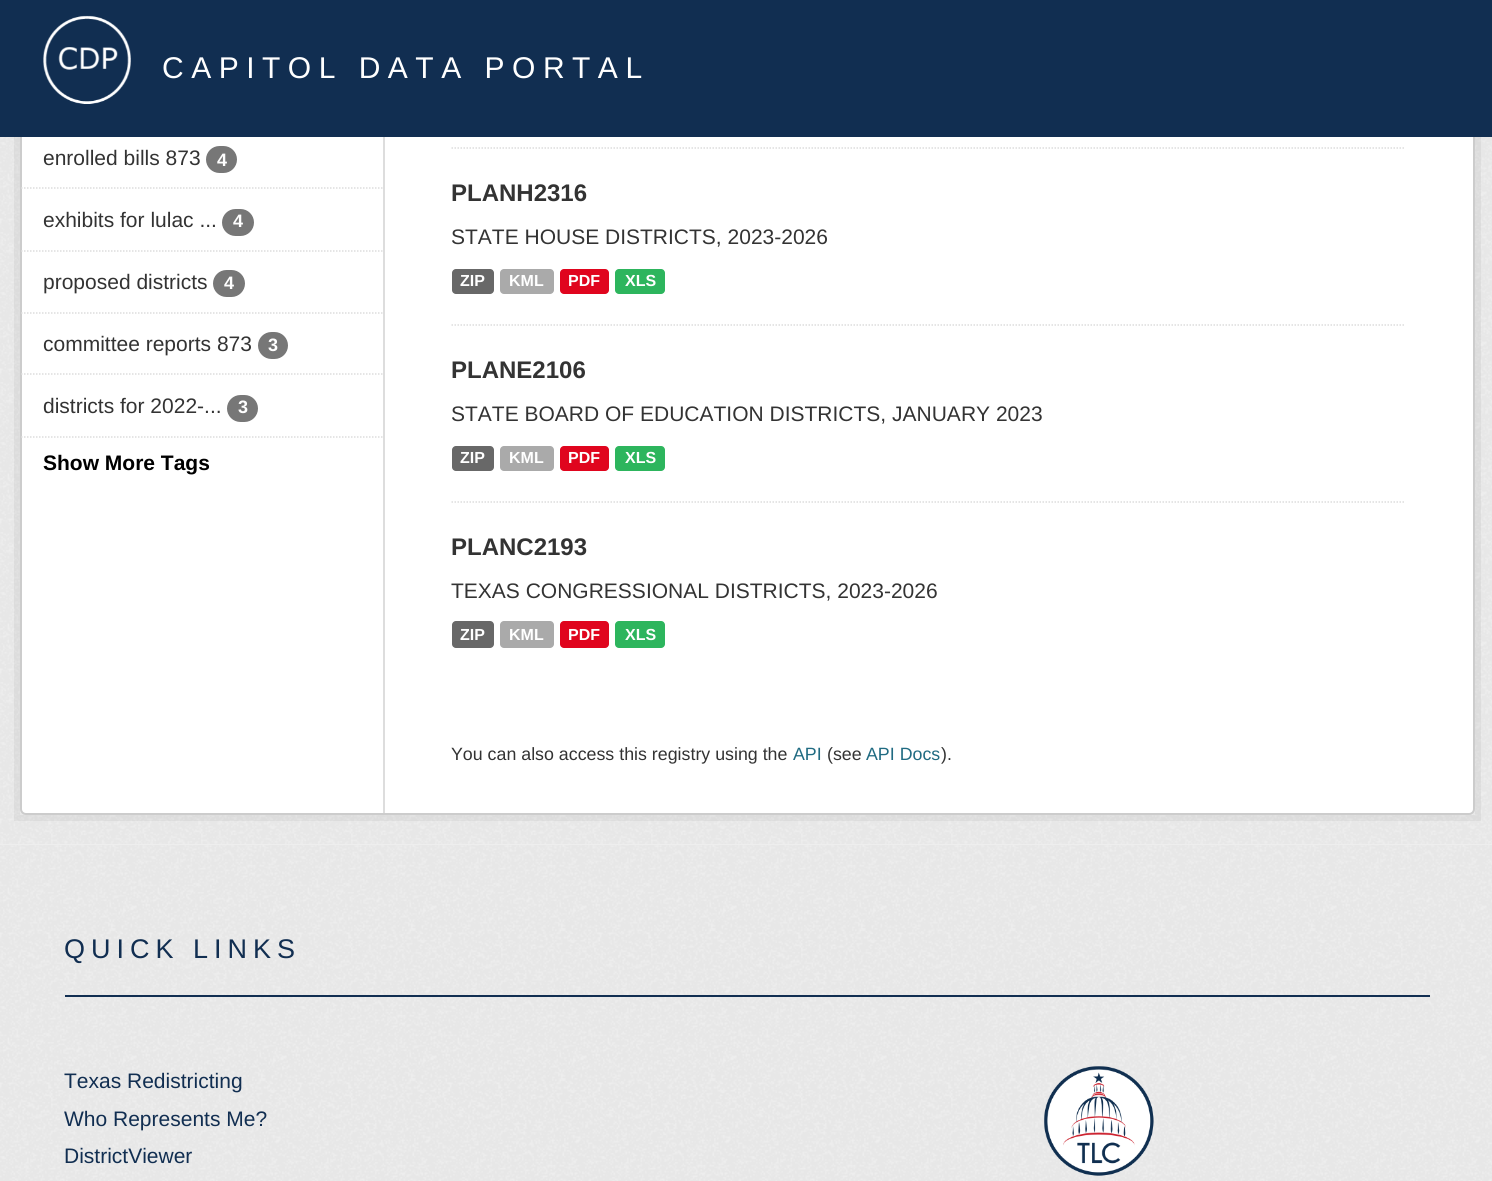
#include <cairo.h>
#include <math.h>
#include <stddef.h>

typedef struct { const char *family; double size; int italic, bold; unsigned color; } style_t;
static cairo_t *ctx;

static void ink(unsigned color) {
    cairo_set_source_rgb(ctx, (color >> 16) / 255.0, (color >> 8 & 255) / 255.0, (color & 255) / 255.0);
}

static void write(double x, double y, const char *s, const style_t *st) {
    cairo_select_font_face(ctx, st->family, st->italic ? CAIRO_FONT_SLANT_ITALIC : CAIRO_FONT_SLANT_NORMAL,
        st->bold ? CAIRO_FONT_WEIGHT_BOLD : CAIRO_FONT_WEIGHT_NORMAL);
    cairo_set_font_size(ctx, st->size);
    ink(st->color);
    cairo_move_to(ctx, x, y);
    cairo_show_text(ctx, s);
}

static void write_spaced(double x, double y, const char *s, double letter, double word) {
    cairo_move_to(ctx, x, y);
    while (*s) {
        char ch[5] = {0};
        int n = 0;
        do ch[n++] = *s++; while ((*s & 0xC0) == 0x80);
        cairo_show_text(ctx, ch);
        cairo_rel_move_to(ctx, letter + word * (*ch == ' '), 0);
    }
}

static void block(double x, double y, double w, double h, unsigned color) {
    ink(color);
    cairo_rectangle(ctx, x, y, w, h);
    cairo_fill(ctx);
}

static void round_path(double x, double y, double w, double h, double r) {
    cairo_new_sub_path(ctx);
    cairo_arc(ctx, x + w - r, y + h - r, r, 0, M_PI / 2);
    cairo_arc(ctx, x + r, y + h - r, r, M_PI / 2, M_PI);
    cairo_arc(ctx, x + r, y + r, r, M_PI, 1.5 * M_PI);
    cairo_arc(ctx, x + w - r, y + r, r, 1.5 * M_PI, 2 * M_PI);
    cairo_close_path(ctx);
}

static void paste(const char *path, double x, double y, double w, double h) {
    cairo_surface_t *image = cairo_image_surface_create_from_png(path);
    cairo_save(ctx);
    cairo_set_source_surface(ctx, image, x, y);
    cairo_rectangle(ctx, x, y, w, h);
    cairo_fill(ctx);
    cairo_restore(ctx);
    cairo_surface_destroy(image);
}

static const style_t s1 = {"Liberation Sans", 21, 0, 0, 0x333333};
static const style_t s2 = {"Liberation Sans", 18, 0, 1, 0xffffff};
static const style_t s3 = {"Liberation Sans", 21, 0, 1, 0x000000};
static const style_t s4 = {"Liberation Sans", 24, 0, 1, 0x333333};
static const style_t s5 = {"Liberation Sans", 16, 0, 1, 0xffffff};
static const style_t s6 = {"Liberation Sans", 17.8, 0, 0, 0x333333};
static const style_t s7 = {"Liberation Sans", 17.8, 0, 0, 0x206b82};
static const style_t s8 = {"Liberation Sans", 21, 0, 0, 0x112e51};

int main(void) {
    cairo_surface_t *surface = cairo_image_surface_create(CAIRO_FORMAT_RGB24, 1492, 1181);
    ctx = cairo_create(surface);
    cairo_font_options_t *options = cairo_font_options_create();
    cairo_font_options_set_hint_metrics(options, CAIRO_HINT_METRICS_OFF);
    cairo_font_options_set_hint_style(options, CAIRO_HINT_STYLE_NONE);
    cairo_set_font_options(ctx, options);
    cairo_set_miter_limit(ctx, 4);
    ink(0xeeeeee);
    cairo_paint(ctx);
    paste("pic2.png", 0, 137, 1492, 707);
    cairo_rectangle(ctx, 17, -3, 1461, 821);
    cairo_set_source_rgba(ctx, 0, 0, 0, 0.05);
    cairo_set_line_width(ctx, 6);
    cairo_stroke(ctx);
    ink(0xffffff);
    round_path(21, -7, 1453, 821, 5);
    cairo_fill_preserve(ctx);
    ink(0xcccccc);
    cairo_set_line_width(ctx, 2);
    cairo_stroke(ctx);
    block(0, 0, 1492, 137, 0x112e51);
    paste("pic1.png", 43, 15, 88, 89);
    cairo_select_font_face(ctx, "Liberation Sans", CAIRO_FONT_SLANT_NORMAL, CAIRO_FONT_WEIGHT_NORMAL);
    cairo_set_font_size(ctx, 30);
    ink(0xffffff);
    write_spaced(162, 78, "CAPITOL DATA PORTAL", 7.5, 0);
    cairo_new_path(ctx);
    cairo_move_to(ctx, 21, 188);
    cairo_line_to(ctx, 382.5, 188);
    ink(0xdddddd);
    cairo_set_line_width(ctx, 1.5);
    cairo_set_dash(ctx, (double[]){1.5, 1.5}, 2, 0);
    cairo_stroke(ctx);
    write(43, 165, "enrolled bills 873", &s1);
    ink(0x777777);
    round_path(206, 146, 31, 27, 13.5);
    cairo_fill(ctx);
    write(217, 166, "4", &s2);
    cairo_new_path(ctx);
    cairo_move_to(ctx, 21, 251);
    cairo_line_to(ctx, 382.5, 251);
    ink(0xdddddd);
    cairo_stroke(ctx);
    write(43, 227, "exhibits for lulac ...", &s1);
    ink(0x777777);
    round_path(222, 209, 32, 27, 13.5);
    cairo_fill(ctx);
    write(233, 227, "4", &s2);
    cairo_new_path(ctx);
    cairo_move_to(ctx, 21, 313);
    cairo_line_to(ctx, 382.5, 313);
    ink(0xdddddd);
    cairo_stroke(ctx);
    write(43, 289, "proposed districts", &s1);
    ink(0x777777);
    round_path(213, 270, 32, 27, 13.5);
    cairo_fill(ctx);
    write(224, 289, "4", &s2);
    cairo_new_path(ctx);
    cairo_move_to(ctx, 21, 374);
    cairo_line_to(ctx, 382.5, 374);
    ink(0xdddddd);
    cairo_stroke(ctx);
    write(43, 351, "committee reports 873", &s1);
    ink(0x777777);
    round_path(258, 332, 30, 27, 13.5);
    cairo_fill(ctx);
    write(268, 351, "3", &s2);
    write(43, 413, "districts for 2022-...", &s1);
    ink(0x777777);
    round_path(227, 395, 31, 27, 13.5);
    cairo_fill(ctx);
    write(238, 413, "3", &s2);
    cairo_new_path(ctx);
    cairo_move_to(ctx, 21, 437);
    cairo_line_to(ctx, 382.5, 437);
    ink(0xdddddd);
    cairo_stroke(ctx);
    write(43, 470, "Show More Tags", &s3);
    block(383, 137, 2, 676, 0xdddddd);
    cairo_new_path(ctx);
    cairo_move_to(ctx, 451.5, 148);
    cairo_line_to(ctx, 1405.5, 148);
    cairo_stroke(ctx);
    cairo_new_path(ctx);
    cairo_move_to(ctx, 451.5, 325);
    cairo_line_to(ctx, 1405.5, 325);
    cairo_stroke(ctx);
    write(451, 201, "PLANH2316", &s4);
    write(451, 244, "STATE HOUSE DISTRICTS, 2023-2026", &s1);
    ink(0x686868);
    round_path(452, 269, 42, 25, 4);
    cairo_fill(ctx);
    write(460, 286, "ZIP", &s5);
    ink(0xaaaaaa);
    round_path(500, 269, 54, 25, 4);
    cairo_fill(ctx);
    write(509, 286, "KML", &s5);
    ink(0xe0051e);
    round_path(560, 269, 49, 25, 4);
    cairo_fill(ctx);
    write(568, 286, "PDF", &s5);
    ink(0x2db55d);
    round_path(615, 269, 50, 25, 4);
    cairo_fill(ctx);
    write(625, 286, "XLS", &s5);
    cairo_new_path(ctx);
    cairo_move_to(ctx, 451.5, 502);
    cairo_line_to(ctx, 1405.5, 502);
    ink(0xdddddd);
    cairo_stroke(ctx);
    write(451, 378, "PLANE2106", &s4);
    write(451, 421, "STATE BOARD OF EDUCATION DISTRICTS, JANUARY 2023", &s1);
    ink(0x686868);
    round_path(452, 446, 42, 25, 4);
    cairo_fill(ctx);
    write(460, 463, "ZIP", &s5);
    ink(0xaaaaaa);
    round_path(500, 446, 54, 25, 4);
    cairo_fill(ctx);
    write(509, 463, "KML", &s5);
    ink(0xe0051e);
    round_path(560, 446, 49, 25, 4);
    cairo_fill(ctx);
    write(568, 463, "PDF", &s5);
    ink(0x2db55d);
    round_path(615, 446, 50, 25, 4);
    cairo_fill(ctx);
    write(625, 463, "XLS", &s5);
    write(451, 555, "PLANC2193", &s4);
    write(451, 598, "TEXAS CONGRESSIONAL DISTRICTS, 2023-2026", &s1);
    ink(0x686868);
    round_path(452, 621, 42, 27, 4);
    cairo_fill(ctx);
    write(460, 640, "ZIP", &s5);
    ink(0xaaaaaa);
    round_path(500, 621, 54, 27, 4);
    cairo_fill(ctx);
    write(509, 640, "KML", &s5);
    ink(0xe0051e);
    round_path(560, 621, 49, 27, 4);
    cairo_fill(ctx);
    write(568, 640, "PDF", &s5);
    ink(0x2db55d);
    round_path(615, 621, 50, 27, 4);
    cairo_fill(ctx);
    write(625, 640, "XLS", &s5);
    write(451, 760, "You can also access this registry using the", &s6);
    write(793, 760, "API", &s7);
    write(827, 760, "(see", &s6);
    write(866, 760, "API Docs", &s7);
    write(941, 760, ").", &s6);
    paste("pic3.png", 0, 845, 1492, 336);
    cairo_set_font_size(ctx, 27);
    ink(0x112e51);
    write_spaced(64, 958, "QUICK LINKS", 6, 0);
    block(65, 995, 1365, 2, 0x112e51);
    write(64, 1088, "Texas Redistricting", &s8);
    write(64, 1126, "Who Represents Me?", &s8);
    write(64, 1163, "DistrictViewer", &s8);
    paste("pic4.png", 1044, 1066, 110, 110);
    cairo_surface_write_to_png(surface, "screenshot.png");
    cairo_font_options_destroy(options);
    cairo_destroy(ctx);
    cairo_surface_destroy(surface);
    return 0;
}
